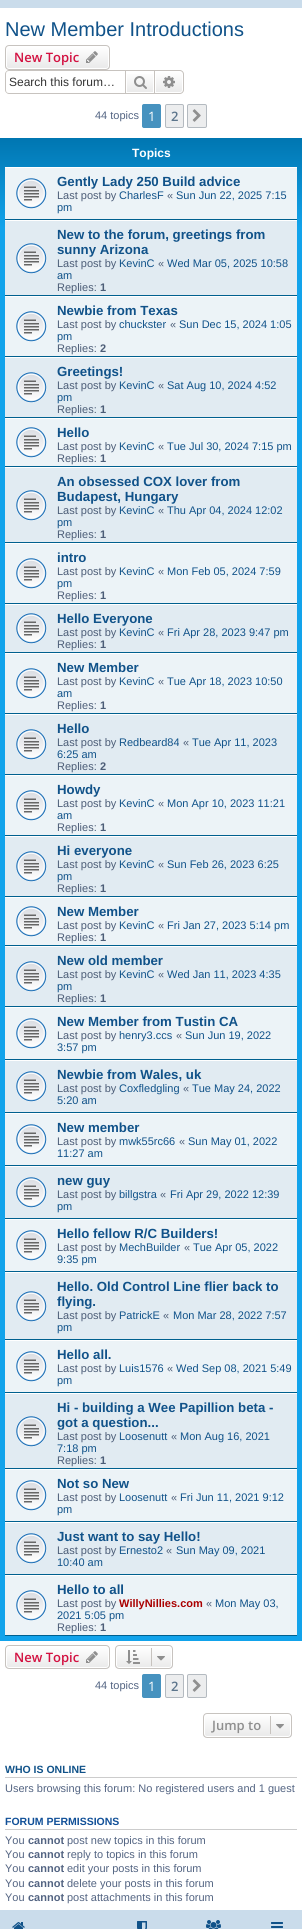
#include <cairo.h>
#include <math.h>
#include <stddef.h>

typedef struct { const char *family; double size; int italic, bold; unsigned color; } style_t;
static cairo_t *ctx;

static void ink(unsigned color) {
    cairo_set_source_rgb(ctx, (color >> 16) / 255.0, (color >> 8 & 255) / 255.0, (color & 255) / 255.0);
}

static void write(double x, double y, const char *s, const style_t *st) {
    cairo_select_font_face(ctx, st->family, st->italic ? CAIRO_FONT_SLANT_ITALIC : CAIRO_FONT_SLANT_NORMAL,
        st->bold ? CAIRO_FONT_WEIGHT_BOLD : CAIRO_FONT_WEIGHT_NORMAL);
    cairo_set_font_size(ctx, st->size);
    ink(st->color);
    cairo_move_to(ctx, x, y);
    cairo_show_text(ctx, s);
}

static void block(double x, double y, double w, double h, unsigned color) {
    ink(color);
    cairo_rectangle(ctx, x, y, w, h);
    cairo_fill(ctx);
}

static void round_path(double x, double y, double w, double h, double r) {
    cairo_new_sub_path(ctx);
    cairo_arc(ctx, x + w - r, y + h - r, r, 0, M_PI / 2);
    cairo_arc(ctx, x + r, y + h - r, r, M_PI / 2, M_PI);
    cairo_arc(ctx, x + r, y + r, r, M_PI, 1.5 * M_PI);
    cairo_arc(ctx, x + w - r, y + r, r, 1.5 * M_PI, 2 * M_PI);
    cairo_close_path(ctx);
}

static void paste(const char *path, double x, double y, double w, double h) {
    cairo_surface_t *image = cairo_image_surface_create_from_png(path);
    cairo_save(ctx);
    cairo_set_source_surface(ctx, image, x, y);
    cairo_rectangle(ctx, x, y, w, h);
    cairo_fill(ctx);
    cairo_restore(ctx);
    cairo_surface_destroy(image);
}

static const style_t s1 = {"Liberation Sans", 20, 0, 0, 0x105289};
static const style_t s2 = {"Open Sans SemiBold", 13, 0, 0, 0xd31141};
static const style_t s3 = {"Liberation Sans", 12, 0, 0, 0x333333};
static const style_t s4 = {"Liberation Sans", 11, 0, 0, 0x536482};
static const style_t s5 = {"Open Sans", 13, 0, 0, 0xffffff};
static const style_t s6 = {"Open Sans SemiBold", 13, 0, 0, 0x5c758c};
static const style_t s7 = {"Liberation Sans", 12, 0, 1, 0xffffff};
static const style_t s8 = {"Liberation Sans", 13.25, 0, 1, 0x105289};
static const style_t s9 = {"Liberation Sans", 11, 0, 0, 0x4c5d77};
static const style_t s10 = {"Liberation Sans", 11, 0, 0, 0x105289};
static const style_t s11 = {"Liberation Sans", 11, 0, 1, 0x4c5d77};
static const style_t s12 = {"Liberation Sans", 11, 0, 1, 0xaa0000};
static const style_t s13 = {"Open Sans SemiBold", 13, 0, 0, 0x8f8f8f};
static const style_t s14 = {"Liberation Sans", 10.5, 0, 1, 0x105289};
static const style_t s15 = {"Liberation Sans", 10.5, 0, 1, 0x115098};
static const style_t s16 = {"Liberation Sans", 11, 0, 1, 0x536482};

int main(void) {
    cairo_surface_t *surface = cairo_image_surface_create(CAIRO_FORMAT_RGB24, 302, 1929);
    ctx = cairo_create(surface);
    cairo_font_options_t *options = cairo_font_options_create();
    cairo_font_options_set_hint_metrics(options, CAIRO_HINT_METRICS_OFF);
    cairo_font_options_set_hint_style(options, CAIRO_HINT_STYLE_NONE);
    cairo_set_font_options(ctx, options);
    cairo_set_miter_limit(ctx, 4);
    cairo_pattern_t *gradient;
    ink(0xffffff);
    cairo_paint(ctx);
    block(0, 0, 302, 8, 0xcadceb);
    write(5, 36, "New Member Introductions", &s1);
    cairo_save(ctx);
    round_path(5, 45, 105, 25, 4);
    cairo_clip(ctx);
    gradient = cairo_pattern_create_linear(58, 46, 58, 69);
    cairo_pattern_add_color_stop_rgba(gradient, 0, 1, 1, 1, 1);
    cairo_pattern_add_color_stop_rgba(gradient, 1, 0.914, 0.914, 0.914, 1);
    cairo_set_source(ctx, gradient);
    cairo_pattern_destroy(gradient);
    cairo_rectangle(ctx, 5, 46, 105, 23);
    cairo_fill(ctx);
    cairo_restore(ctx);
    round_path(6.5, 46.5, 102, 22, 2.5);
    ink(0xffffff);
    cairo_set_line_width(ctx, 1);
    cairo_stroke(ctx);
    round_path(5.5, 45.5, 104, 24, 3.5);
    ink(0xc7c3bf);
    cairo_stroke(ctx);
    write(14, 62, "New Topic", &s2);
    paste("pic1.png", 86, 51, 12, 12);
    ink(0xc7c3bf);
    cairo_set_fill_rule(ctx, CAIRO_FILL_RULE_EVEN_ODD);
    cairo_new_path(ctx);
    cairo_move_to(ctx, 9, 70);
    cairo_line_to(ctx, 125, 70);
    cairo_line_to(ctx, 125, 94);
    cairo_line_to(ctx, 9, 94);
    cairo_curve_to(ctx, 7, 94, 5, 92, 5, 90);
    cairo_line_to(ctx, 5, 74);
    cairo_curve_to(ctx, 5, 72, 7, 70, 9, 70);
    cairo_close_path(ctx);
    cairo_move_to(ctx, 9, 71);
    cairo_line_to(ctx, 125, 71);
    cairo_line_to(ctx, 125, 93);
    cairo_line_to(ctx, 9, 93);
    cairo_curve_to(ctx, 7, 93, 6, 92, 6, 90);
    cairo_line_to(ctx, 6, 74);
    cairo_curve_to(ctx, 6, 72, 7, 71, 9, 71);
    cairo_close_path(ctx);
    cairo_fill(ctx);
    write(9, 86, "Search this forum…", &s3);
    gradient = cairo_pattern_create_linear(140, 71, 140, 93);
    cairo_pattern_add_color_stop_rgba(gradient, 0, 1, 1, 1, 1);
    cairo_pattern_add_color_stop_rgba(gradient, 1, 0.914, 0.914, 0.914, 1);
    cairo_set_source(ctx, gradient);
    cairo_pattern_destroy(gradient);
    cairo_rectangle(ctx, 127, 74, 26, 18);
    cairo_fill(ctx);
    cairo_rectangle(ctx, 125.5, 70.5, 29, 23);
    ink(0xc7c3bf);
    cairo_stroke(ctx);
    paste("pic2.png", 134, 76, 13, 13);
    gradient = cairo_pattern_create_linear(169, 71, 169, 93);
    cairo_pattern_add_color_stop_rgba(gradient, 0, 1, 1, 1, 1);
    cairo_pattern_add_color_stop_rgba(gradient, 1, 0.914, 0.914, 0.914, 1);
    cairo_set_source(ctx, gradient);
    cairo_pattern_destroy(gradient);
    cairo_new_path(ctx);
    cairo_move_to(ctx, 155.5, 71.5);
    cairo_line_to(ctx, 180, 71.5);
    cairo_curve_to(ctx, 181.5, 71.5, 182.5, 72.5, 182.5, 74);
    cairo_line_to(ctx, 182.5, 90);
    cairo_curve_to(ctx, 182.5, 91.5, 181.5, 92.5, 180, 92.5);
    cairo_line_to(ctx, 155.5, 92.5);
    cairo_close_path(ctx);
    cairo_fill_preserve(ctx);
    ink(0xffffff);
    cairo_stroke(ctx);
    ink(0xc7c3bf);
    cairo_new_path(ctx);
    cairo_move_to(ctx, 155, 70);
    cairo_line_to(ctx, 180, 70);
    cairo_curve_to(ctx, 182, 70, 184, 72, 184, 74);
    cairo_line_to(ctx, 184, 90);
    cairo_curve_to(ctx, 184, 92, 182, 94, 180, 94);
    cairo_line_to(ctx, 155, 94);
    cairo_close_path(ctx);
    cairo_move_to(ctx, 155, 71);
    cairo_line_to(ctx, 180, 71);
    cairo_curve_to(ctx, 181.5, 71, 183, 72.5, 183, 74);
    cairo_line_to(ctx, 183, 90);
    cairo_curve_to(ctx, 183, 91.5, 181.5, 93, 180, 93);
    cairo_line_to(ctx, 155, 93);
    cairo_close_path(ctx);
    cairo_fill(ctx);
    paste("pic3.png", 163, 76, 12, 12);
    write(95, 119, "44 topics", &s4);
    ink(0x4692bf);
    round_path(142.5, 104.5, 18, 23, 1.5);
    cairo_fill_preserve(ctx);
    cairo_stroke(ctx);
    write(148, 121, "1", &s5);
    ink(0xecedee);
    round_path(165.5, 104.5, 18, 23, 1.5);
    cairo_fill_preserve(ctx);
    ink(0xb4bac0);
    cairo_stroke(ctx);
    write(171, 121, "2", &s6);
    ink(0xecedee);
    round_path(187.5, 104.5, 19, 23, 1.5);
    cairo_fill_preserve(ctx);
    ink(0xb4bac0);
    cairo_stroke(ctx);
    paste("pic4.png", 192, 109, 9, 13);
    gradient = cairo_pattern_create_linear(151, 138, 151, 1641);
    cairo_pattern_add_color_stop_rgba(gradient, 0, 0.416, 0.808, 1, 1);
    cairo_pattern_add_color_stop_rgba(gradient, 0, 0, 0.463, 0.694, 1);
    cairo_pattern_add_color_stop_rgba(gradient, 0.06, 0.071, 0.639, 0.922, 1);
    cairo_pattern_add_color_stop_rgba(gradient, 1, 0.071, 0.639, 0.922, 1);
    cairo_set_source(ctx, gradient);
    cairo_pattern_destroy(gradient);
    cairo_rectangle(ctx, 0, 138, 302, 1503);
    cairo_fill(ctx);
    write(132, 157, "Topics", &s7);
    block(5, 168, 292, 51, 0xecf3f7);
    block(5, 167, 292, 1, 0xffffff);
    block(5, 219, 292, 1, 0x00608f);
    paste("pic5.png", 16, 178, 31, 31);
    write(57, 186, "Gently Lady 250 Build advice", &s8);
    write(57, 199, "Last post by", &s9);
    write(119, 199, "CharlesF", &s10);
    write(167, 199, "«", &s9);
    write(176, 199, "Sun Jun 22, 2025 7:15", &s10);
    write(57, 211, "pm", &s10);
    block(5, 221, 292, 74, 0xe1ebf2);
    block(5, 220, 292, 1, 0xffffff);
    block(5, 295, 292, 1, 0x00608f);
    paste("pic6.png", 16, 243, 31, 31);
    write(57, 239, "New to the forum, greetings from", &s8);
    write(57, 254, "sunny Arizona", &s8);
    write(57, 267, "Last post by", &s9);
    write(119, 267, "KevinC", &s10);
    write(158, 267, "«", &s9);
    write(167, 267, "Wed Mar 05, 2025 10:58", &s10);
    write(57, 279, "am", &s10);
    write(57, 291, "Replies:", &s9);
    write(100, 291, "1", &s11);
    block(5, 297, 292, 59, 0xecf3f7);
    block(5, 296, 292, 1, 0xffffff);
    block(5, 356, 292, 1, 0x00608f);
    paste("pic5.png", 16, 311, 31, 31);
    write(57, 315, "Newbie from Texas", &s8);
    write(57, 328, "Last post by", &s9);
    write(119, 328, "chuckster", &s10);
    write(170, 328, "«", &s9);
    write(179, 328, "Sun Dec 15, 2024 1:05", &s10);
    write(57, 340, "pm", &s10);
    write(57, 352, "Replies:", &s9);
    write(100, 352, "2", &s11);
    block(5, 358, 292, 59, 0xe1ebf2);
    block(5, 357, 292, 1, 0xffffff);
    block(5, 417, 292, 1, 0x00608f);
    paste("pic6.png", 16, 372, 31, 31);
    write(57, 376, "Greetings!", &s8);
    write(57, 389, "Last post by", &s9);
    write(119, 389, "KevinC", &s10);
    write(158, 389, "«", &s9);
    write(167, 389, "Sat Aug 10, 2024 4:52", &s10);
    write(57, 401, "pm", &s10);
    write(57, 413, "Replies:", &s9);
    write(100, 413, "1", &s11);
    block(5, 419, 292, 47, 0xecf3f7);
    block(5, 418, 292, 1, 0xffffff);
    block(5, 466, 292, 1, 0x00608f);
    paste("pic5.png", 16, 427, 31, 31);
    write(57, 437, "Hello", &s8);
    write(57, 450, "Last post by", &s9);
    write(119, 450, "KevinC", &s10);
    write(158, 450, "«", &s9);
    write(167, 450, "Tue Jul 30, 2024 7:15 pm", &s10);
    write(57, 462, "Replies:", &s9);
    write(100, 462, "1", &s11);
    block(5, 468, 292, 74, 0xe1ebf2);
    block(5, 467, 292, 1, 0xffffff);
    block(5, 542, 292, 1, 0x00608f);
    paste("pic6.png", 16, 490, 31, 31);
    write(57, 486, "An obsessed COX lover from", &s8);
    write(57, 501, "Budapest, Hungary", &s8);
    write(57, 514, "Last post by", &s9);
    write(119, 514, "KevinC", &s10);
    write(158, 514, "«", &s9);
    write(167, 514, "Thu Apr 04, 2024 12:02", &s10);
    write(57, 526, "pm", &s10);
    write(57, 538, "Replies:", &s9);
    write(100, 538, "1", &s11);
    block(5, 544, 292, 59, 0xecf3f7);
    block(5, 543, 292, 1, 0xffffff);
    block(5, 603, 292, 1, 0x00608f);
    paste("pic5.png", 16, 558, 31, 31);
    write(57, 562, "intro", &s8);
    write(57, 575, "Last post by", &s9);
    write(119, 575, "KevinC", &s10);
    write(158, 575, "«", &s9);
    write(167, 575, "Mon Feb 05, 2024 7:59", &s10);
    write(57, 587, "pm", &s10);
    write(57, 599, "Replies:", &s9);
    write(100, 599, "1", &s11);
    block(5, 605, 292, 47, 0xe1ebf2);
    block(5, 604, 292, 1, 0xffffff);
    block(5, 652, 292, 1, 0x00608f);
    paste("pic6.png", 16, 613, 31, 31);
    write(57, 623, "Hello Everyone", &s8);
    write(57, 636, "Last post by", &s9);
    write(119, 636, "KevinC", &s10);
    write(158, 636, "«", &s9);
    write(167, 636, "Fri Apr 28, 2023 9:47 pm", &s10);
    write(57, 648, "Replies:", &s9);
    write(100, 648, "1", &s11);
    block(5, 654, 292, 59, 0xecf3f7);
    block(5, 653, 292, 1, 0xffffff);
    block(5, 713, 292, 1, 0x00608f);
    paste("pic5.png", 16, 668, 31, 31);
    write(57, 672, "New Member", &s8);
    write(57, 685, "Last post by", &s9);
    write(119, 685, "KevinC", &s10);
    write(158, 685, "«", &s9);
    write(167, 685, "Tue Apr 18, 2023 10:50", &s10);
    write(57, 697, "am", &s10);
    write(57, 709, "Replies:", &s9);
    write(100, 709, "1", &s11);
    block(5, 715, 292, 59, 0xe1ebf2);
    block(5, 714, 292, 1, 0xffffff);
    block(5, 774, 292, 1, 0x00608f);
    paste("pic6.png", 16, 729, 31, 31);
    write(57, 733, "Hello", &s8);
    write(57, 746, "Last post by", &s9);
    write(119, 746, "Redbeard84", &s10);
    write(183, 746, "«", &s9);
    write(192, 746, "Tue Apr 11, 2023", &s10);
    write(57, 758, "6:25 am", &s10);
    write(57, 770, "Replies:", &s9);
    write(100, 770, "2", &s11);
    block(5, 776, 292, 59, 0xecf3f7);
    block(5, 775, 292, 1, 0xffffff);
    block(5, 835, 292, 1, 0x00608f);
    paste("pic5.png", 16, 790, 31, 31);
    write(57, 794, "Howdy", &s8);
    write(57, 807, "Last post by", &s9);
    write(119, 807, "KevinC", &s10);
    write(158, 807, "«", &s9);
    write(167, 807, "Mon Apr 10, 2023 11:21", &s10);
    write(57, 819, "am", &s10);
    write(57, 831, "Replies:", &s9);
    write(100, 831, "1", &s11);
    block(5, 837, 292, 59, 0xe1ebf2);
    block(5, 836, 292, 1, 0xffffff);
    block(5, 896, 292, 1, 0x00608f);
    paste("pic6.png", 16, 851, 31, 31);
    write(57, 855, "Hi everyone", &s8);
    write(57, 868, "Last post by", &s9);
    write(119, 868, "KevinC", &s10);
    write(158, 868, "«", &s9);
    write(167, 868, "Sun Feb 26, 2023 6:25", &s10);
    write(57, 880, "pm", &s10);
    write(57, 892, "Replies:", &s9);
    write(100, 892, "1", &s11);
    block(5, 898, 292, 47, 0xecf3f7);
    block(5, 897, 292, 1, 0xffffff);
    block(5, 945, 292, 1, 0x00608f);
    paste("pic5.png", 16, 906, 31, 31);
    write(57, 916, "New Member", &s8);
    write(57, 929, "Last post by", &s9);
    write(119, 929, "KevinC", &s10);
    write(158, 929, "«", &s9);
    write(167, 929, "Fri Jan 27, 2023 5:14 pm", &s10);
    write(57, 941, "Replies:", &s9);
    write(100, 941, "1", &s11);
    block(5, 947, 292, 59, 0xe1ebf2);
    block(5, 946, 292, 1, 0xffffff);
    block(5, 1006, 292, 1, 0x00608f);
    paste("pic6.png", 16, 961, 31, 31);
    write(57, 965, "New old member", &s8);
    write(57, 978, "Last post by", &s9);
    write(119, 978, "KevinC", &s10);
    write(158, 978, "«", &s9);
    write(167, 978, "Wed Jan 11, 2023 4:35", &s10);
    write(57, 990, "pm", &s10);
    write(57, 1002, "Replies:", &s9);
    write(100, 1002, "1", &s11);
    block(5, 1008, 292, 51, 0xecf3f7);
    block(5, 1007, 292, 1, 0xffffff);
    block(5, 1059, 292, 1, 0x00608f);
    paste("pic5.png", 16, 1018, 31, 31);
    write(57, 1026, "New Member from Tustin CA", &s8);
    write(57, 1039, "Last post by", &s9);
    write(119, 1039, "henry3.ccs", &s10);
    write(176, 1039, "«", &s9);
    write(185, 1039, "Sun Jun 19, 2022", &s10);
    write(57, 1051, "3:57 pm", &s10);
    block(5, 1061, 292, 51, 0xe1ebf2);
    block(5, 1060, 292, 1, 0xffffff);
    block(5, 1112, 292, 1, 0x00608f);
    paste("pic6.png", 16, 1071, 31, 31);
    write(57, 1079, "Newbie from Wales, uk", &s8);
    write(57, 1092, "Last post by", &s9);
    write(119, 1092, "Coxfledgling", &s10);
    write(183, 1092, "«", &s9);
    write(192, 1092, "Tue May 24, 2022", &s10);
    write(57, 1104, "5:20 am", &s10);
    block(5, 1114, 292, 51, 0xecf3f7);
    block(5, 1113, 292, 1, 0xffffff);
    block(5, 1165, 292, 1, 0x00608f);
    paste("pic5.png", 16, 1124, 31, 31);
    write(57, 1132, "New member", &s8);
    write(57, 1145, "Last post by", &s9);
    write(119, 1145, "mwk55rc66", &s10);
    write(179, 1145, "«", &s9);
    write(188, 1145, "Sun May 01, 2022", &s10);
    write(57, 1157, "11:27 am", &s10);
    block(5, 1167, 292, 51, 0xe1ebf2);
    block(5, 1166, 292, 1, 0xffffff);
    block(5, 1218, 292, 1, 0x00608f);
    paste("pic6.png", 16, 1177, 31, 31);
    write(57, 1185, "new guy", &s8);
    write(57, 1198, "Last post by", &s9);
    write(119, 1198, "billgstra", &s10);
    write(160, 1198, "«", &s9);
    write(170, 1198, "Fri Apr 29, 2022 12:39", &s10);
    write(57, 1210, "pm", &s10);
    block(5, 1220, 292, 51, 0xecf3f7);
    block(5, 1219, 292, 1, 0xffffff);
    block(5, 1271, 292, 1, 0x00608f);
    paste("pic5.png", 16, 1230, 31, 31);
    write(57, 1238, "Hello fellow R/C Builders!", &s8);
    write(57, 1251, "Last post by", &s9);
    write(119, 1251, "MechBuilder", &s10);
    write(184, 1251, "«", &s9);
    write(193, 1251, "Tue Apr 05, 2022", &s10);
    write(57, 1263, "9:35 pm", &s10);
    block(5, 1273, 292, 66, 0xe1ebf2);
    block(5, 1272, 292, 1, 0xffffff);
    block(5, 1339, 292, 1, 0x00608f);
    paste("pic6.png", 16, 1291, 31, 31);
    write(57, 1291, "Hello. Old Control Line flier back to", &s8);
    write(57, 1306, "flying.", &s8);
    write(57, 1319, "Last post by", &s9);
    write(119, 1319, "PatrickE", &s10);
    write(163, 1319, "«", &s9);
    write(173, 1319, "Mon Mar 28, 2022 7:57", &s10);
    write(57, 1331, "pm", &s10);
    block(5, 1341, 292, 51, 0xecf3f7);
    block(5, 1340, 292, 1, 0xffffff);
    block(5, 1392, 292, 1, 0x00608f);
    paste("pic5.png", 16, 1351, 31, 31);
    write(57, 1359, "Hello all.", &s8);
    write(57, 1372, "Last post by", &s9);
    write(119, 1372, "Luis1576", &s10);
    write(167, 1372, "«", &s9);
    write(176, 1372, "Wed Sep 08, 2021 5:49", &s10);
    write(57, 1384, "pm", &s10);
    block(5, 1394, 292, 74, 0xe1ebf2);
    block(5, 1393, 292, 1, 0xffffff);
    block(5, 1468, 292, 1, 0x00608f);
    paste("pic6.png", 16, 1416, 31, 31);
    write(57, 1412, "Hi - building a Wee Papillion beta -", &s8);
    write(57, 1427, "got a question...", &s8);
    write(57, 1440, "Last post by", &s9);
    write(119, 1440, "Loosenutt", &s10);
    write(171, 1440, "«", &s9);
    write(180, 1440, "Mon Aug 16, 2021", &s10);
    write(57, 1452, "7:18 pm", &s10);
    write(57, 1464, "Replies:", &s9);
    write(100, 1464, "1", &s11);
    block(5, 1470, 292, 51, 0xecf3f7);
    block(5, 1469, 292, 1, 0xffffff);
    block(5, 1521, 292, 1, 0x00608f);
    paste("pic5.png", 16, 1480, 31, 31);
    write(57, 1488, "Not so New", &s8);
    write(57, 1501, "Last post by", &s9);
    write(119, 1501, "Loosenutt", &s10);
    write(171, 1501, "«", &s9);
    write(180, 1501, "Fri Jun 11, 2021 9:12", &s10);
    write(57, 1513, "pm", &s10);
    block(5, 1523, 292, 51, 0xe1ebf2);
    block(5, 1522, 292, 1, 0xffffff);
    block(5, 1574, 292, 1, 0x00608f);
    paste("pic6.png", 16, 1533, 31, 31);
    write(57, 1541, "Just want to say Hello!", &s8);
    write(57, 1554, "Last post by", &s9);
    write(119, 1554, "Ernesto2", &s10);
    write(166, 1554, "«", &s9);
    write(176, 1554, "Sun May 09, 2021", &s10);
    write(57, 1566, "10:40 am", &s10);
    block(5, 1576, 292, 59, 0xecf3f7);
    block(5, 1575, 292, 1, 0xffffff);
    block(5, 1635, 292, 1, 0x00608f);
    paste("pic5.png", 16, 1590, 31, 31);
    write(57, 1594, "Hello to all", &s8);
    write(57, 1607, "Last post by", &s9);
    write(119, 1607, "WillyNillies.com", &s12);
    write(206, 1607, "«", &s9);
    write(215, 1607, "Mon May 03,", &s10);
    write(57, 1619, "2021 5:05 pm", &s10);
    write(57, 1631, "Replies:", &s9);
    write(100, 1631, "1", &s11);
    cairo_save(ctx);
    cairo_set_fill_rule(ctx, CAIRO_FILL_RULE_WINDING);
    round_path(5, 1645, 105, 24, 4);
    cairo_clip(ctx);
    gradient = cairo_pattern_create_linear(58, 1646, 58, 1668);
    cairo_pattern_add_color_stop_rgba(gradient, 0, 1, 1, 1, 1);
    cairo_pattern_add_color_stop_rgba(gradient, 1, 0.914, 0.914, 0.914, 1);
    cairo_set_source(ctx, gradient);
    cairo_pattern_destroy(gradient);
    cairo_rectangle(ctx, 5, 1646, 105, 22);
    cairo_fill(ctx);
    cairo_restore(ctx);
    round_path(6.5, 1646.5, 102, 21, 2.5);
    ink(0xffffff);
    cairo_stroke(ctx);
    round_path(5.5, 1645.5, 104, 23, 3.5);
    ink(0xc7c3bf);
    cairo_stroke(ctx);
    write(14, 1662, "New Topic", &s2);
    paste("pic1.png", 86, 1651, 12, 12);
    cairo_save(ctx);
    cairo_set_fill_rule(ctx, CAIRO_FILL_RULE_WINDING);
    round_path(115, 1645, 58, 24, 4);
    cairo_clip(ctx);
    gradient = cairo_pattern_create_linear(144, 1646, 144, 1668);
    cairo_pattern_add_color_stop_rgba(gradient, 0, 1, 1, 1, 1);
    cairo_pattern_add_color_stop_rgba(gradient, 1, 0.914, 0.914, 0.914, 1);
    cairo_set_source(ctx, gradient);
    cairo_pattern_destroy(gradient);
    cairo_rectangle(ctx, 115, 1646, 58, 22);
    cairo_fill(ctx);
    cairo_restore(ctx);
    round_path(116.5, 1646.5, 55, 21, 2.5);
    ink(0xffffff);
    cairo_stroke(ctx);
    round_path(115.5, 1645.5, 57, 23, 3.5);
    ink(0xc7c3bf);
    cairo_stroke(ctx);
    paste("pic7.png", 126, 1650, 14, 14);
    block(151, 1648, 1, 18, 0xc7c3bf);
    paste("pic8.png", 157, 1656, 8, 5);
    write(95, 1689, "44 topics", &s4);
    ink(0x4692bf);
    round_path(142.5, 1674.5, 18, 23, 1.5);
    cairo_fill_preserve(ctx);
    cairo_stroke(ctx);
    write(148, 1691, "1", &s5);
    ink(0xecedee);
    round_path(165.5, 1674.5, 18, 23, 1.5);
    cairo_fill_preserve(ctx);
    ink(0xb4bac0);
    cairo_stroke(ctx);
    write(171, 1691, "2", &s6);
    ink(0xecedee);
    round_path(187.5, 1674.5, 19, 23, 1.5);
    cairo_fill_preserve(ctx);
    ink(0xb4bac0);
    cairo_stroke(ctx);
    paste("pic4.png", 192, 1679, 9, 13);
    cairo_save(ctx);
    cairo_set_fill_rule(ctx, CAIRO_FILL_RULE_WINDING);
    round_path(203, 1713, 89, 25, 4);
    cairo_clip(ctx);
    gradient = cairo_pattern_create_linear(248, 1714, 248, 1737);
    cairo_pattern_add_color_stop_rgba(gradient, 0, 1, 1, 1, 1);
    cairo_pattern_add_color_stop_rgba(gradient, 1, 0.914, 0.914, 0.914, 1);
    cairo_set_source(ctx, gradient);
    cairo_pattern_destroy(gradient);
    cairo_rectangle(ctx, 203, 1714, 89, 23);
    cairo_fill(ctx);
    cairo_restore(ctx);
    round_path(204.5, 1714.5, 86, 22, 2.5);
    ink(0xffffff);
    cairo_stroke(ctx);
    round_path(203.5, 1713.5, 88, 24, 3.5);
    ink(0xc7c3bf);
    cairo_stroke(ctx);
    write(212, 1730, "Jump to", &s13);
    block(270, 1716, 1, 18, 0xc7c3bf);
    paste("pic8.png", 276, 1724, 8, 5);
    block(5, 1777, 292, 1, 0xcccccc);
    write(5, 1773, "WHO IS ONLINE", &s14);
    write(5, 1792, "Users browsing this forum: No registered users and 1 guest", &s4);
    block(5, 1829, 292, 1, 0xcccccc);
    write(5, 1825, "FORUM PERMISSIONS", &s15);
    write(5, 1844, "You", &s4);
    write(28, 1844, "cannot", &s16);
    write(67, 1844, "post new topics in this forum", &s4);
    write(5, 1858, "You", &s4);
    write(28, 1858, "cannot", &s16);
    write(67, 1858, "reply to topics in this forum", &s4);
    write(5, 1872, "You", &s4);
    write(28, 1872, "cannot", &s16);
    write(67, 1872, "edit your posts in this forum", &s4);
    write(5, 1887, "You", &s4);
    write(28, 1887, "cannot", &s16);
    write(67, 1887, "delete your posts in this forum", &s4);
    write(5, 1901, "You", &s4);
    write(28, 1901, "cannot", &s16);
    write(67, 1901, "post attachments in this forum", &s4);
    block(0, 1910, 302, 19, 0xcadceb);
    paste("pic9.png", 12, 1922, 13, 7);
    paste("pic10.png", 137, 1921, 10, 8);
    paste("pic11.png", 206, 1920, 15, 9);
    paste("pic12.png", 271, 1922, 12, 6);
    cairo_surface_write_to_png(surface, "screenshot.png");
    cairo_font_options_destroy(options);
    cairo_destroy(ctx);
    cairo_surface_destroy(surface);
    return 0;
}
